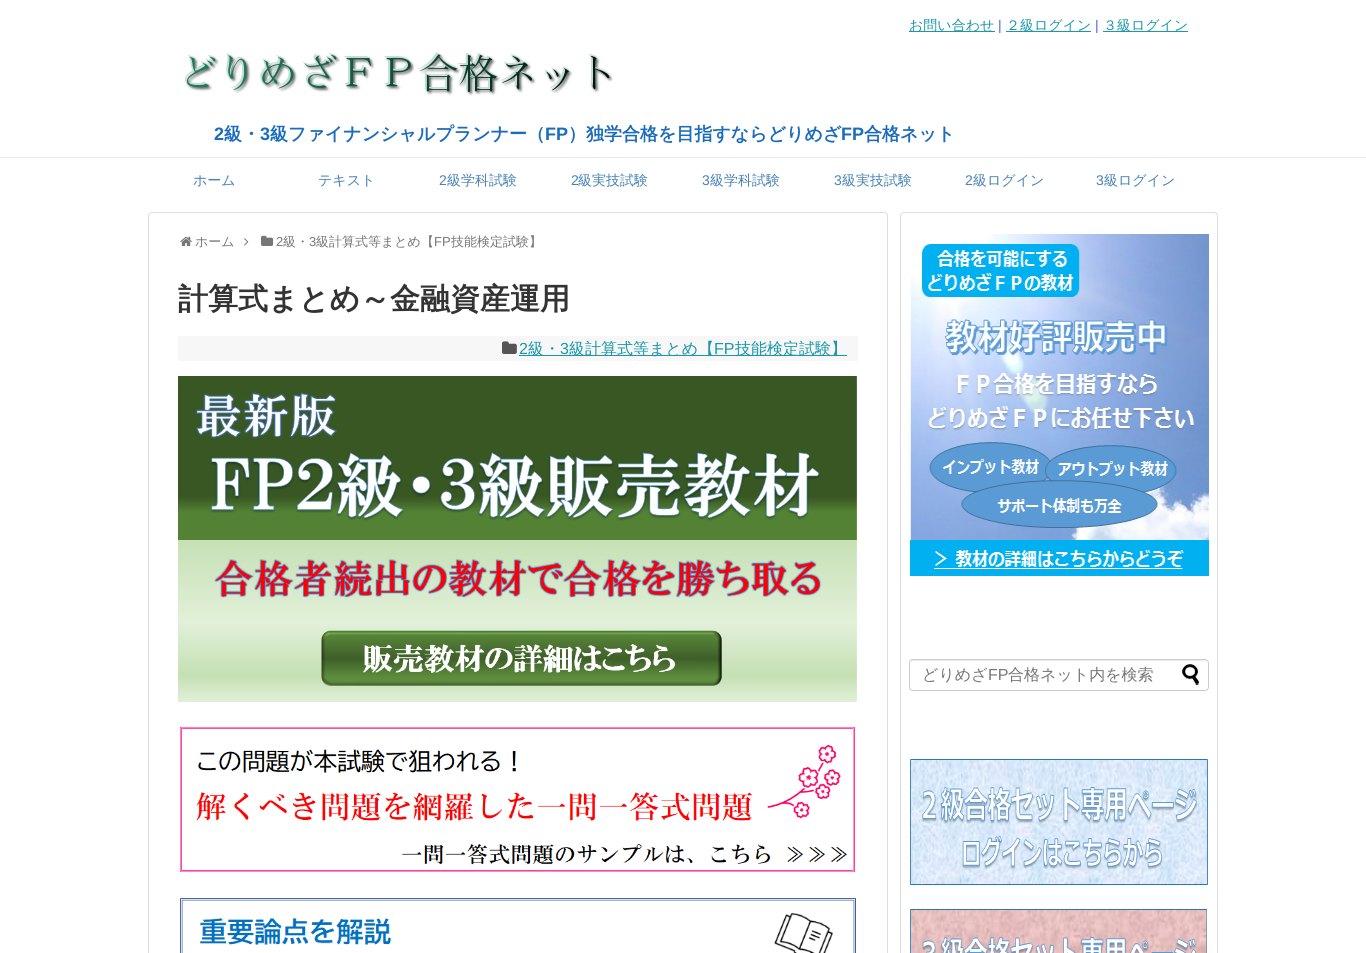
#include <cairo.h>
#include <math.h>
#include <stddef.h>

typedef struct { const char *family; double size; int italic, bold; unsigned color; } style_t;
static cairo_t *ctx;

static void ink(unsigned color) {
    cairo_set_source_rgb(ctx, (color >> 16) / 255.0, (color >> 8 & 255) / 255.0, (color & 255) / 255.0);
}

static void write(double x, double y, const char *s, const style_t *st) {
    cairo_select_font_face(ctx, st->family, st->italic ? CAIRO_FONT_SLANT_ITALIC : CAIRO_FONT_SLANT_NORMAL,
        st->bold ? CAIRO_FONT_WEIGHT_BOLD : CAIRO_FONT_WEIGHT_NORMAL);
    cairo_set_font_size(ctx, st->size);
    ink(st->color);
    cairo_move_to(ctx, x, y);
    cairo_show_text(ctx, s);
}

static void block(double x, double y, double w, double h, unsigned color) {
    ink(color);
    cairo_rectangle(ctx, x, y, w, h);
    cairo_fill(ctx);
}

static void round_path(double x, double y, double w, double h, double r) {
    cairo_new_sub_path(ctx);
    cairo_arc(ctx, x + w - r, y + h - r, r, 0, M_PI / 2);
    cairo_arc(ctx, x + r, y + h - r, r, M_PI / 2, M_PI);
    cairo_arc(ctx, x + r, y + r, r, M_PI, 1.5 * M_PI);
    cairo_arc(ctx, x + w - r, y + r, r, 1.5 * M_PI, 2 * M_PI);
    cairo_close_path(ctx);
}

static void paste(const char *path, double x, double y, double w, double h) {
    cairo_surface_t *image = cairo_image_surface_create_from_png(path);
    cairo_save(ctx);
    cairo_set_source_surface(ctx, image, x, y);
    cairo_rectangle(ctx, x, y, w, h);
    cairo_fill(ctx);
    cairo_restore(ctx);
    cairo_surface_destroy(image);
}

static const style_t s1 = {"WenQuanYi Zen Hei Medium", 14, 0, 0, 0x1a97a8};
static const style_t s2 = {"Liberation Sans", 14, 0, 0, 0x4169e1};
static const style_t s3 = {"Liberation Sans", 18, 0, 1, 0x1c6cbc};
static const style_t s4 = {"WenQuanYi Zen Hei", 18, 0, 1, 0x1c6cbc};
static const style_t s5 = {"WenQuanYi Zen Hei Medium", 14, 0, 0, 0x4682b4};
static const style_t s6 = {"Liberation Sans", 14, 0, 0, 0x4682b4};
static const style_t s7 = {"WenQuanYi Zen Hei Medium", 13, 0, 0, 0x777777};
static const style_t s8 = {"Liberation Sans", 13, 0, 0, 0x777777};
static const style_t s9 = {"WenQuanYi Zen Hei", 30, 0, 1, 0x333333};
static const style_t s10 = {"Liberation Sans", 16, 0, 0, 0x1a97a8};
static const style_t s11 = {"WenQuanYi Zen Hei Medium", 16, 0, 0, 0x1a97a8};
static const style_t s12 = {"WenQuanYi Zen Hei Medium", 16, 0, 0, 0x777777};
static const style_t s13 = {"Liberation Sans", 16, 0, 0, 0x777777};

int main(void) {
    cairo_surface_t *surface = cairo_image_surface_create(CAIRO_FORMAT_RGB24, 1366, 953);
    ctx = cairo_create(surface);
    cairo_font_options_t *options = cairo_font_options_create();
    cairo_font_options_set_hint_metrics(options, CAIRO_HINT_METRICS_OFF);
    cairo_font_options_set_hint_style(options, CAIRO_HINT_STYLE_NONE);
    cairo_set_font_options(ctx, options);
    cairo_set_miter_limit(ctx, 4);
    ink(0xffffff);
    cairo_paint(ctx);
    block(909, 31, 86, 1, 0x1a97a8);
    write(909, 30, "お問い合わせ", &s1);
    write(998, 30, "|", &s2);
    block(1006, 31, 85, 1, 0x1a97a8);
    write(1006, 30, "２級ログイン", &s1);
    write(1095, 30, "|", &s2);
    block(1103, 31, 85, 1, 0x1a97a8);
    write(1103, 30, "３級ログイン", &s1);
    paste("pic1.png", 184, 52, 429, 44);
    write(214, 140, "2", &s3);
    write(224, 140, "級・", &s4);
    write(260, 140, "3", &s3);
    write(270, 140, "級ファイナンシャルプランナー（", &s4);
    write(545, 140, "FP", &s3);
    write(568, 140, "）独学合格を目指すならどりめざ", &s4);
    write(841, 140, "FP", &s3);
    write(864, 140, "合格ネット", &s4);
    block(0, 157, 1366, 1, 0xe6e6fa);
    write(193, 185, "ホーム", &s5);
    write(318, 185, "テキスト", &s5);
    write(439, 185, "2", &s6);
    write(447, 185, "級学科試験", &s5);
    write(571, 185, "2", &s6);
    write(578, 185, "級実技試験", &s5);
    write(702, 185, "3", &s6);
    write(710, 185, "級学科試験", &s5);
    write(834, 185, "3", &s6);
    write(842, 185, "級実技試験", &s5);
    write(965, 185, "2", &s6);
    write(973, 185, "級ログイン", &s5);
    write(1096, 185, "3", &s6);
    write(1104, 185, "級ログイン", &s5);
    round_path(148.5, 212.5, 739, 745, 3.5);
    ink(0xdddddd);
    cairo_set_line_width(ctx, 1);
    cairo_stroke(ctx);
    paste("pic2.png", 180, 236, 12, 10);
    write(195, 246, "ホーム", &s7);
    paste("pic3.png", 244, 238, 5, 8);
    paste("pic4.png", 261, 235, 13, 11);
    write(276, 246, "2", &s8);
    write(283, 246, "級・", &s7);
    write(309, 246, "3", &s8);
    write(316, 246, "級計算式等まとめ【", &s7);
    write(434, 246, "FP", &s8);
    write(451, 246, "技能検定試験】", &s7);
    write(178, 309, "計算式まとめ～金融資産運用", &s9);
    block(178, 336, 680, 25, 0xf7f7f7);
    paste("pic5.png", 502, 341, 15, 13);
    write(519, 354, "2", &s10);
    block(519, 355, 328, 1, 0x1a97a8);
    write(528, 354, "級・", &s11);
    write(560, 354, "3", &s10);
    write(569, 354, "級計算式等まとめ【", &s11);
    write(714, 354, "FP", &s10);
    write(735, 354, "技能検定試験】", &s11);
    paste("pic6.png", 178, 376, 679, 326);
    paste("pic7.png", 180, 727, 675, 145);
    paste("pic8.png", 180, 898, 676, 55);
    round_path(900.5, 212.5, 317, 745, 3.5);
    ink(0xdddddd);
    cairo_stroke(ctx);
    paste("pic9.png", 909, 234, 300, 342);
    ink(0xececec);
    cairo_new_path(ctx);
    cairo_move_to(ctx, 913, 661);
    cairo_line_to(ctx, 1205, 661);
    cairo_curve_to(ctx, 1207, 661, 1208, 662, 1208, 664);
    cairo_line_to(ctx, 1207, 661);
    cairo_line_to(ctx, 1206, 660);
    cairo_line_to(ctx, 913, 660);
    cairo_curve_to(ctx, 911, 660, 910, 662, 910, 664);
    cairo_curve_to(ctx, 910, 662, 911, 661, 913, 661);
    cairo_close_path(ctx);
    cairo_fill(ctx);
    round_path(909.5, 659.5, 299, 31, 3.5);
    ink(0xcccccc);
    cairo_stroke(ctx);
    write(922, 680, "どりめざ", &s12);
    write(988, 680, "FP", &s13);
    write(1008, 680, "合格ネット内を検索", &s12);
    paste("pic10.png", 1182, 664, 17, 21);
    paste("pic11.png", 910, 759, 298, 126);
    paste("pic12.png", 910, 909, 297, 44);
    cairo_surface_write_to_png(surface, "screenshot.png");
    cairo_font_options_destroy(options);
    cairo_destroy(ctx);
    cairo_surface_destroy(surface);
    return 0;
}
